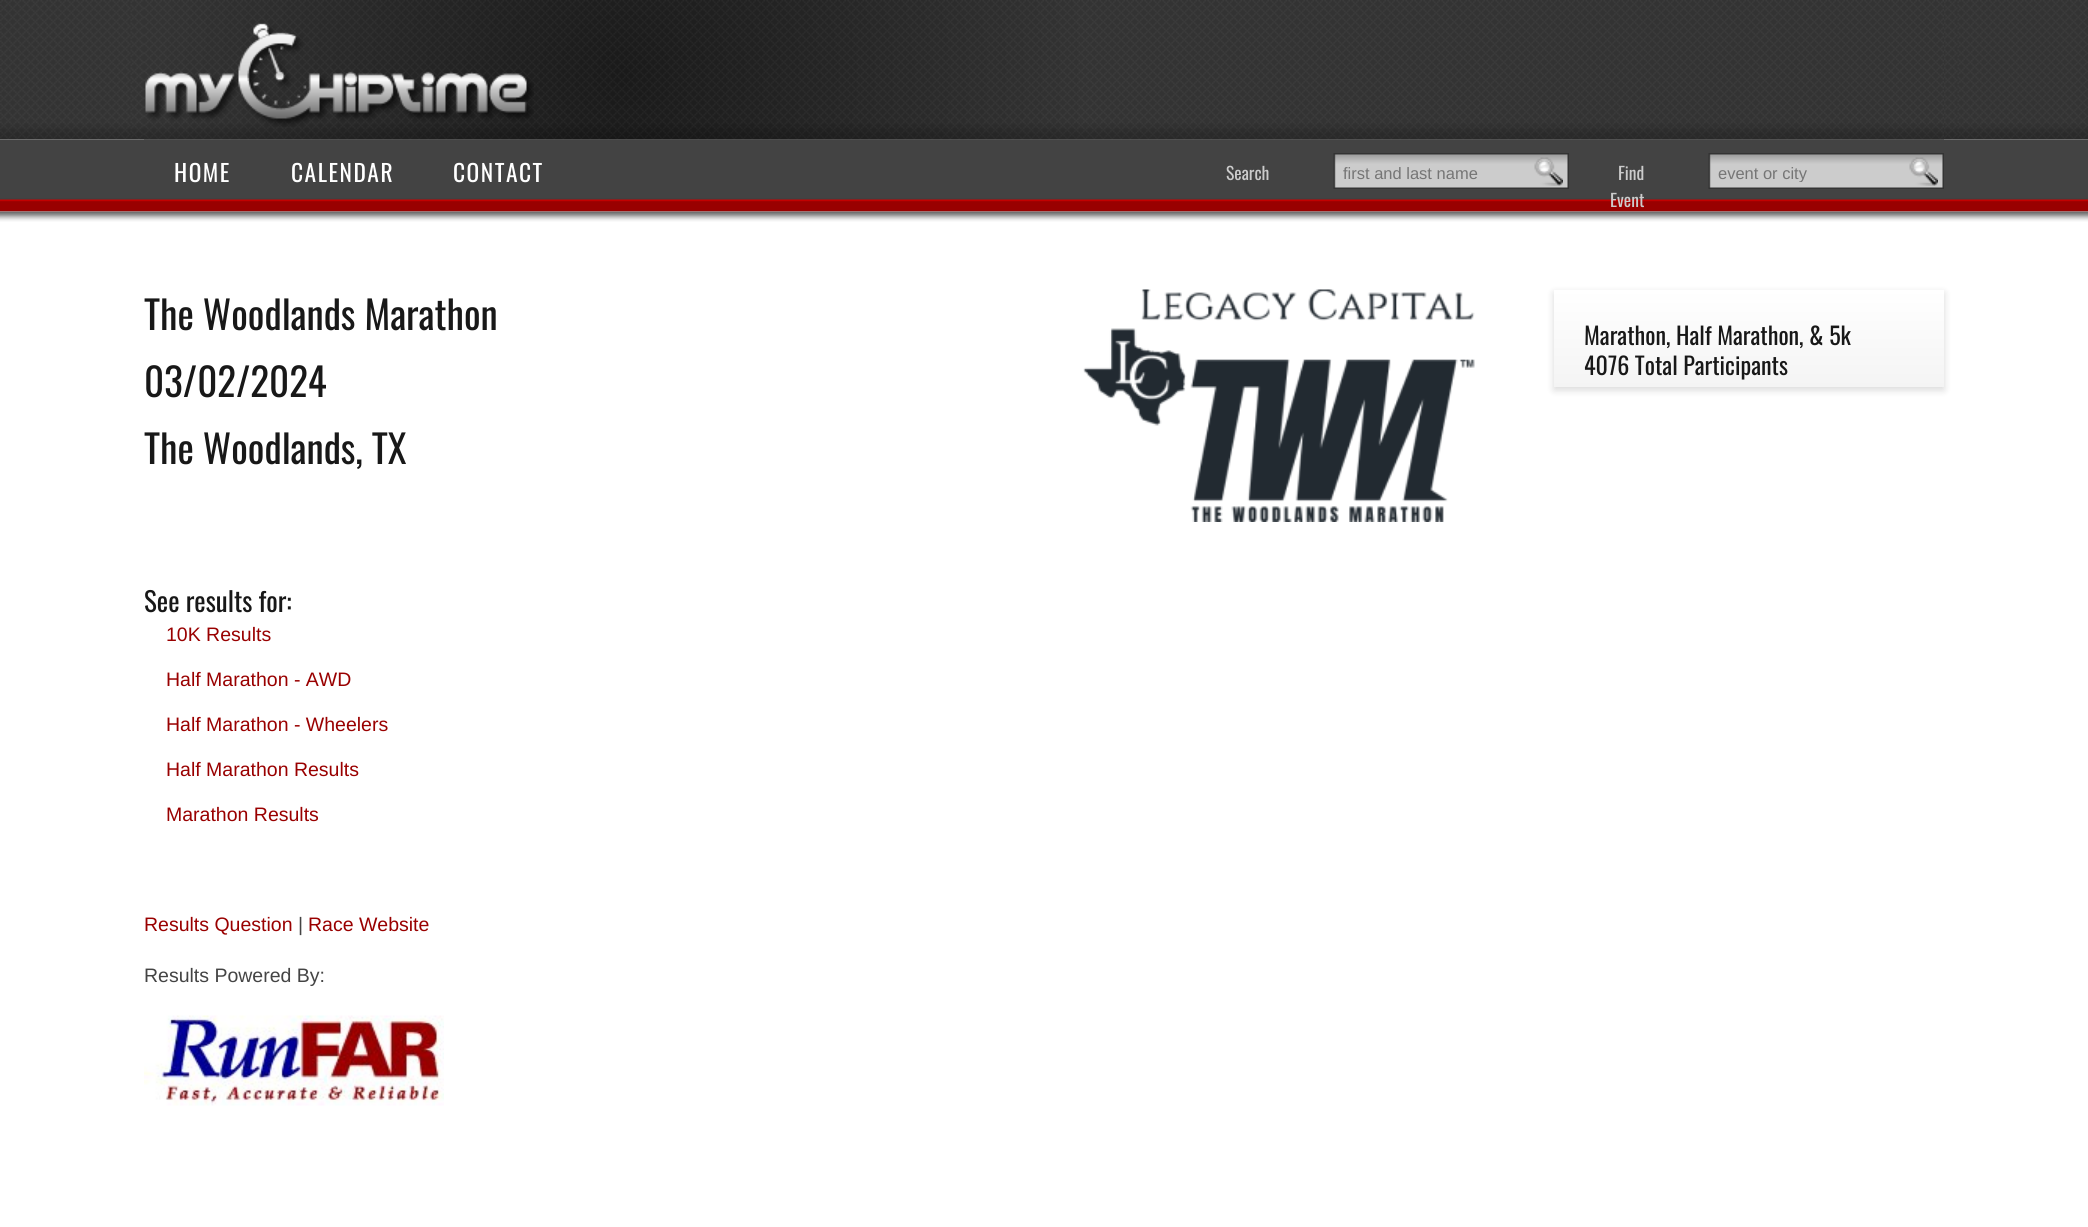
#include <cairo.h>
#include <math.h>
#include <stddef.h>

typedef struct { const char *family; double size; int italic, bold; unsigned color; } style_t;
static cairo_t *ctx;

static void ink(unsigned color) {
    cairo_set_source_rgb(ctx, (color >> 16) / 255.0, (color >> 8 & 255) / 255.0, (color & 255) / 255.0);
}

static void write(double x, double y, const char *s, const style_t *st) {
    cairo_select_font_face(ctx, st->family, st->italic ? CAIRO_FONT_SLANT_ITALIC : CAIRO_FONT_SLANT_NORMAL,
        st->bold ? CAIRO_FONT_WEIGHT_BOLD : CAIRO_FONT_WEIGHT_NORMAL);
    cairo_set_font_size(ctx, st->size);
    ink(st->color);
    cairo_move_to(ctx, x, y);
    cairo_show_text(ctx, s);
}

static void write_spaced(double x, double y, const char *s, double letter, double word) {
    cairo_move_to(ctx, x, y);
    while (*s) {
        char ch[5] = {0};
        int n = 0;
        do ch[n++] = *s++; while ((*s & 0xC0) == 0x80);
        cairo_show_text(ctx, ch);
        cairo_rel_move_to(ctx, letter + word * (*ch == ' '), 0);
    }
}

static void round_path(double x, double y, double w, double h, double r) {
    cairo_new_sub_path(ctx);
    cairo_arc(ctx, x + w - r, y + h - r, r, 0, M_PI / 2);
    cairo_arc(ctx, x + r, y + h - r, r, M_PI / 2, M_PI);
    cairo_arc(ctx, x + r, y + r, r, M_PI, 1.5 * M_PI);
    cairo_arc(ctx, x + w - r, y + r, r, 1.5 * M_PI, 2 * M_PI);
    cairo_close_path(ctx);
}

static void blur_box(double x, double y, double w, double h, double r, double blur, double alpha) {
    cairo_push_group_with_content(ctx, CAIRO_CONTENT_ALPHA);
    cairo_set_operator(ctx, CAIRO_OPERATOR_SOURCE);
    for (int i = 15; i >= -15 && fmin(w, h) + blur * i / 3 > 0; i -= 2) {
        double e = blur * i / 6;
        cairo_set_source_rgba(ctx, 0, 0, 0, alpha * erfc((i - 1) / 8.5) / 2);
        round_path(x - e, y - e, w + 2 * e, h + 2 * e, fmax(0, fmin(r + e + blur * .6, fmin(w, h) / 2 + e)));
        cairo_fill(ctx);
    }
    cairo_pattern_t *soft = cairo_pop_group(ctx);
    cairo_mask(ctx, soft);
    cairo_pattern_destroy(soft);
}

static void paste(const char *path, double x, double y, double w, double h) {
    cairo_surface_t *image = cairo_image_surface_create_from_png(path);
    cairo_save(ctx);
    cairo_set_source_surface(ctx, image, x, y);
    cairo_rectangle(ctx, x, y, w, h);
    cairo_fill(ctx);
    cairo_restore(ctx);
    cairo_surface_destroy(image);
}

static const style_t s1 = {"Oswald", 17.5, 0, 0, 0xcccccc};
static const style_t s2 = {"Liberation Sans", 16.5, 0, 0, 0x757575};
static const style_t s3 = {"Oswald", 39, 0, 0, 0x181818};
static const style_t s4 = {"Oswald", 24, 0, 0, 0x181818};
static const style_t s5 = {"Oswald", 27, 0, 0, 0x181818};
static const style_t s6 = {"Liberation Sans", 19.5, 0, 0, 0x990000};
static const style_t s7 = {"Liberation Sans", 19.5, 0, 0, 0x444444};

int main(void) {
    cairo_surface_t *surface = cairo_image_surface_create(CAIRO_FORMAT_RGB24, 2088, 1227);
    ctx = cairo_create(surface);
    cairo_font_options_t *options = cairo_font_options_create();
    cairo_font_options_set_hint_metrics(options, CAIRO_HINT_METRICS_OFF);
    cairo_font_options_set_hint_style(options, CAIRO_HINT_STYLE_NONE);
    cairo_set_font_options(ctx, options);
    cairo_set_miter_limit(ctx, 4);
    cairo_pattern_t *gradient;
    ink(0xffffff);
    cairo_paint(ctx);
    paste("pic1.png", 0, 0, 2088, 140);
    paste("pic2.png", 144, 0, 1800, 140);
    paste("pic3.png", 145, 23, 389, 104);
    paste("pic4.png", 0, 139, 2088, 73);
    cairo_select_font_face(ctx, "Oswald", CAIRO_FONT_SLANT_NORMAL, CAIRO_FONT_WEIGHT_NORMAL);
    cairo_set_font_size(ctx, 23.5);
    ink(0xffffff);
    write_spaced(174, 182, "HOME", 1.5, 0);
    write_spaced(291, 182, "CALENDAR", 1.5, 0);
    write_spaced(453, 182, "CONTACT", 1.5, 0);
    write(1226, 180, "Search", &s1);
    paste("pic5.png", 1333, 153, 236, 36);
    write(1343, 179, "first and last name", &s2);
    paste("pic6.png", 1534, 157, 29, 29);
    write(1618, 180, "Find", &s1);
    write(1610, 207, "Event", &s1);
    paste("pic5.png", 1708, 153, 236, 36);
    cairo_save(ctx);
    cairo_rectangle(ctx, 1718, 164, 189, 18);
    cairo_clip(ctx);
    write(1718, 179, "event or city", &s2);
    cairo_restore(ctx);
    paste("pic7.png", 1909, 157, 29, 29);
    paste("pic8.png", 0, 211, 2088, 11);
    write(144, 330, "The Woodlands Marathon", &s3);
    write(144, 397, "03/02/2024", &s3);
    write(144, 464, "The Woodlands, TX", &s3);
    paste("pic9.png", 1083, 289, 392, 233);
    ink(0x000000);
    blur_box(1554, 293, 390, 97, 0, 4, 0.15);
    gradient = cairo_pattern_create_linear(1554, 290, 1554, 387);
    cairo_pattern_add_color_stop_rgba(gradient, 0, 1, 1, 1, 1);
    cairo_pattern_add_color_stop_rgba(gradient, 1, 0.957, 0.957, 0.957, 1);
    cairo_set_source(ctx, gradient);
    cairo_pattern_destroy(gradient);
    cairo_rectangle(ctx, 1554, 290, 390, 97);
    cairo_fill(ctx);
    write(1584, 345, "Marathon, Half Marathon, & 5k", &s4);
    write(1584, 375, "4076 Total Participants", &s4);
    write(144, 612, "See results for:", &s5);
    write(166, 641, "10K Results", &s6);
    write(166, 686, "Half Marathon - AWD", &s6);
    write(166, 731, "Half Marathon - Wheelers", &s6);
    write(166, 776, "Half Marathon Results", &s6);
    write(166, 821, "Marathon Results", &s6);
    write(144, 931, "Results Question", &s6);
    write(298, 931, "|", &s7);
    write(308, 931, "Race Website", &s6);
    write(144, 982, "Results Powered By:", &s7);
    paste("pic10.png", 144, 1015, 300, 91);
    cairo_surface_write_to_png(surface, "screenshot.png");
    cairo_font_options_destroy(options);
    cairo_destroy(ctx);
    cairo_surface_destroy(surface);
    return 0;
}
